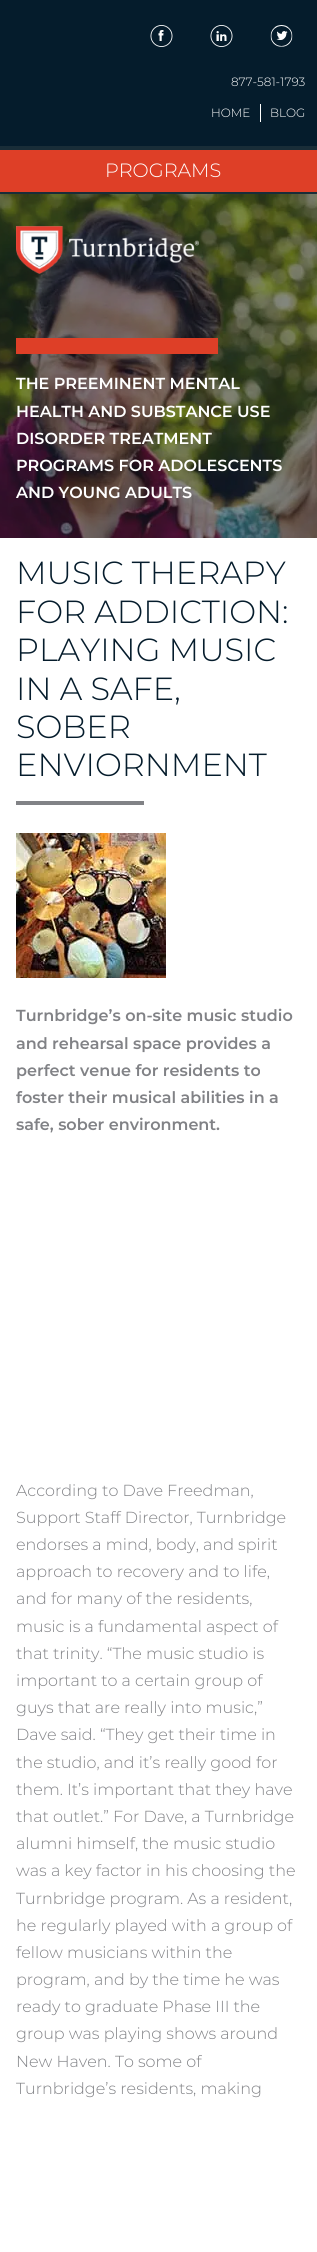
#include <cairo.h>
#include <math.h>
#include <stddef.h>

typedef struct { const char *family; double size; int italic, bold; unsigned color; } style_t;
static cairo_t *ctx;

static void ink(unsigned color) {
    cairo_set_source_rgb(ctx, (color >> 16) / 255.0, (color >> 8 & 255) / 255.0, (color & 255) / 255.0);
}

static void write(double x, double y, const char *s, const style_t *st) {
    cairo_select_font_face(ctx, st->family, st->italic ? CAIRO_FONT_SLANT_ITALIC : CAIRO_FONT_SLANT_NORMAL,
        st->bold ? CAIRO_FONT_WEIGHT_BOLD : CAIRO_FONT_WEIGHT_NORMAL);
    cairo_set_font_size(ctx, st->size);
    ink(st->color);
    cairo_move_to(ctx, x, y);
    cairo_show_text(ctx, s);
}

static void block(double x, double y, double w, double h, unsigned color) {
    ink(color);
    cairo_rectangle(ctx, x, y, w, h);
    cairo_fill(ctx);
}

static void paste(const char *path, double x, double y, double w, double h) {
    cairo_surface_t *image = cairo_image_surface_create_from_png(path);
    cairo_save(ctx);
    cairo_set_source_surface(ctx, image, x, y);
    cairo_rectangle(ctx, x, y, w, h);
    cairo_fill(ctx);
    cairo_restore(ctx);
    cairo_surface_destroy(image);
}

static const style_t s1 = {"Montserrat Light", 12, 0, 0, 0xffffff};
static const style_t s2 = {"Montserrat Light", 19.25, 0, 0, 0xffffff};
static const style_t s3 = {"Montserrat SemiBold", 16, 0, 0, 0xffffff};
static const style_t s4 = {"Montserrat Light", 32, 0, 0, 0x051c2c};
static const style_t s5 = {"Montserrat SemiBold", 16, 0, 0, 0x818286};
static const style_t s6 = {"Montserrat Light", 16, 0, 0, 0x818286};

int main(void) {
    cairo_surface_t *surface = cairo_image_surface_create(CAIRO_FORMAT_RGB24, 317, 2252);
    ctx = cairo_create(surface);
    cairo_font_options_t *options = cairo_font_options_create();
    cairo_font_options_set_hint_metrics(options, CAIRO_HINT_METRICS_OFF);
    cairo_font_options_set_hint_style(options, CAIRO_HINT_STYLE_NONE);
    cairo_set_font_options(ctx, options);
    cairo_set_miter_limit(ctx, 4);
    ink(0xffffff);
    cairo_paint(ctx);
    block(0, 146, 317, 48, 0x192d38);
    block(0, 0, 317, 146, 0x051c2c);
    paste("pic1.png", 150, 25, 23, 22);
    paste("pic2.png", 210, 25, 23, 22);
    paste("pic3.png", 270, 25, 23, 22);
    write(231, 86, "877-581-1793", &s1);
    write(211, 117, "HOME", &s1);
    block(260, 104, 1, 18, 0xffffff);
    write(270, 117, "BLOG", &s1);
    block(0, 150, 317, 42, 0xde3f27);
    write(105, 177, "PROGRAMS", &s2);
    paste("pic4.png", 0, 194, 317, 344);
    paste("pic5.png", 16, 226, 183, 48);
    block(16, 338, 202, 16, 0xde3f27);
    write(16, 389, "THE PREEMINENT MENTAL", &s3);
    write(16, 417, "HEALTH AND SUBSTANCE USE", &s3);
    write(16, 444, "DISORDER TREATMENT", &s3);
    write(16, 471, "PROGRAMS FOR ADOLESCENTS", &s3);
    write(16, 498, "AND YOUNG ADULTS", &s3);
    write(16, 584, "MUSIC THERAPY", &s4);
    write(16, 623, "FOR ADDICTION:", &s4);
    write(16, 661, "PLAYING MUSIC", &s4);
    write(16, 700, "IN A SAFE,", &s4);
    write(16, 738, "SOBER", &s4);
    write(16, 776, "ENVIORNMENT", &s4);
    block(16, 801, 128, 4, 0x818286);
    paste("pic6.png", 16, 833, 150, 145);
    write(16, 1021, "Turnbridge’s on-site music studio", &s5);
    write(16, 1049, "and rehearsal space provides a", &s5);
    write(16, 1076, "perfect venue for residents to", &s5);
    write(16, 1103, "foster their musical abilities in a", &s5);
    write(16, 1130, "safe, sober environment.", &s5);
    write(16, 1496, "According to Dave Freedman,", &s6);
    write(16, 1523, "Support Staff Director, Turnbridge", &s6);
    write(16, 1550, "endorses a mind, body, and spirit", &s6);
    write(16, 1577, "approach to recovery and to life,", &s6);
    write(16, 1604, "and for many of the residents,", &s6);
    write(16, 1632, "music is a fundamental aspect of", &s6);
    write(16, 1659, "that trinity. “The music studio is", &s6);
    write(16, 1686, "important to a certain group of", &s6);
    write(16, 1713, "guys that are really into music,”", &s6);
    write(16, 1740, "Dave said. “They get their time in", &s6);
    write(16, 1768, "the studio, and it’s really good for", &s6);
    write(16, 1795, "them. It’s important that they have", &s6);
    write(16, 1822, "that outlet.” For Dave, a Turnbridge", &s6);
    write(16, 1849, "alumni himself, the music studio", &s6);
    write(16, 1876, "was a key factor in his choosing the", &s6);
    write(16, 1904, "Turnbridge program. As a resident,", &s6);
    write(16, 1931, "he regularly played with a group of", &s6);
    write(16, 1958, "fellow musicians within the", &s6);
    write(16, 1985, "program, and by the time he was", &s6);
    write(16, 2012, "ready to graduate Phase III the", &s6);
    write(16, 2039, "group was playing shows around", &s6);
    write(16, 2067, "New Haven. To some of", &s6);
    write(16, 2094, "Turnbridge’s residents, making", &s6);
    cairo_surface_write_to_png(surface, "screenshot.png");
    cairo_font_options_destroy(options);
    cairo_destroy(ctx);
    cairo_surface_destroy(surface);
    return 0;
}
